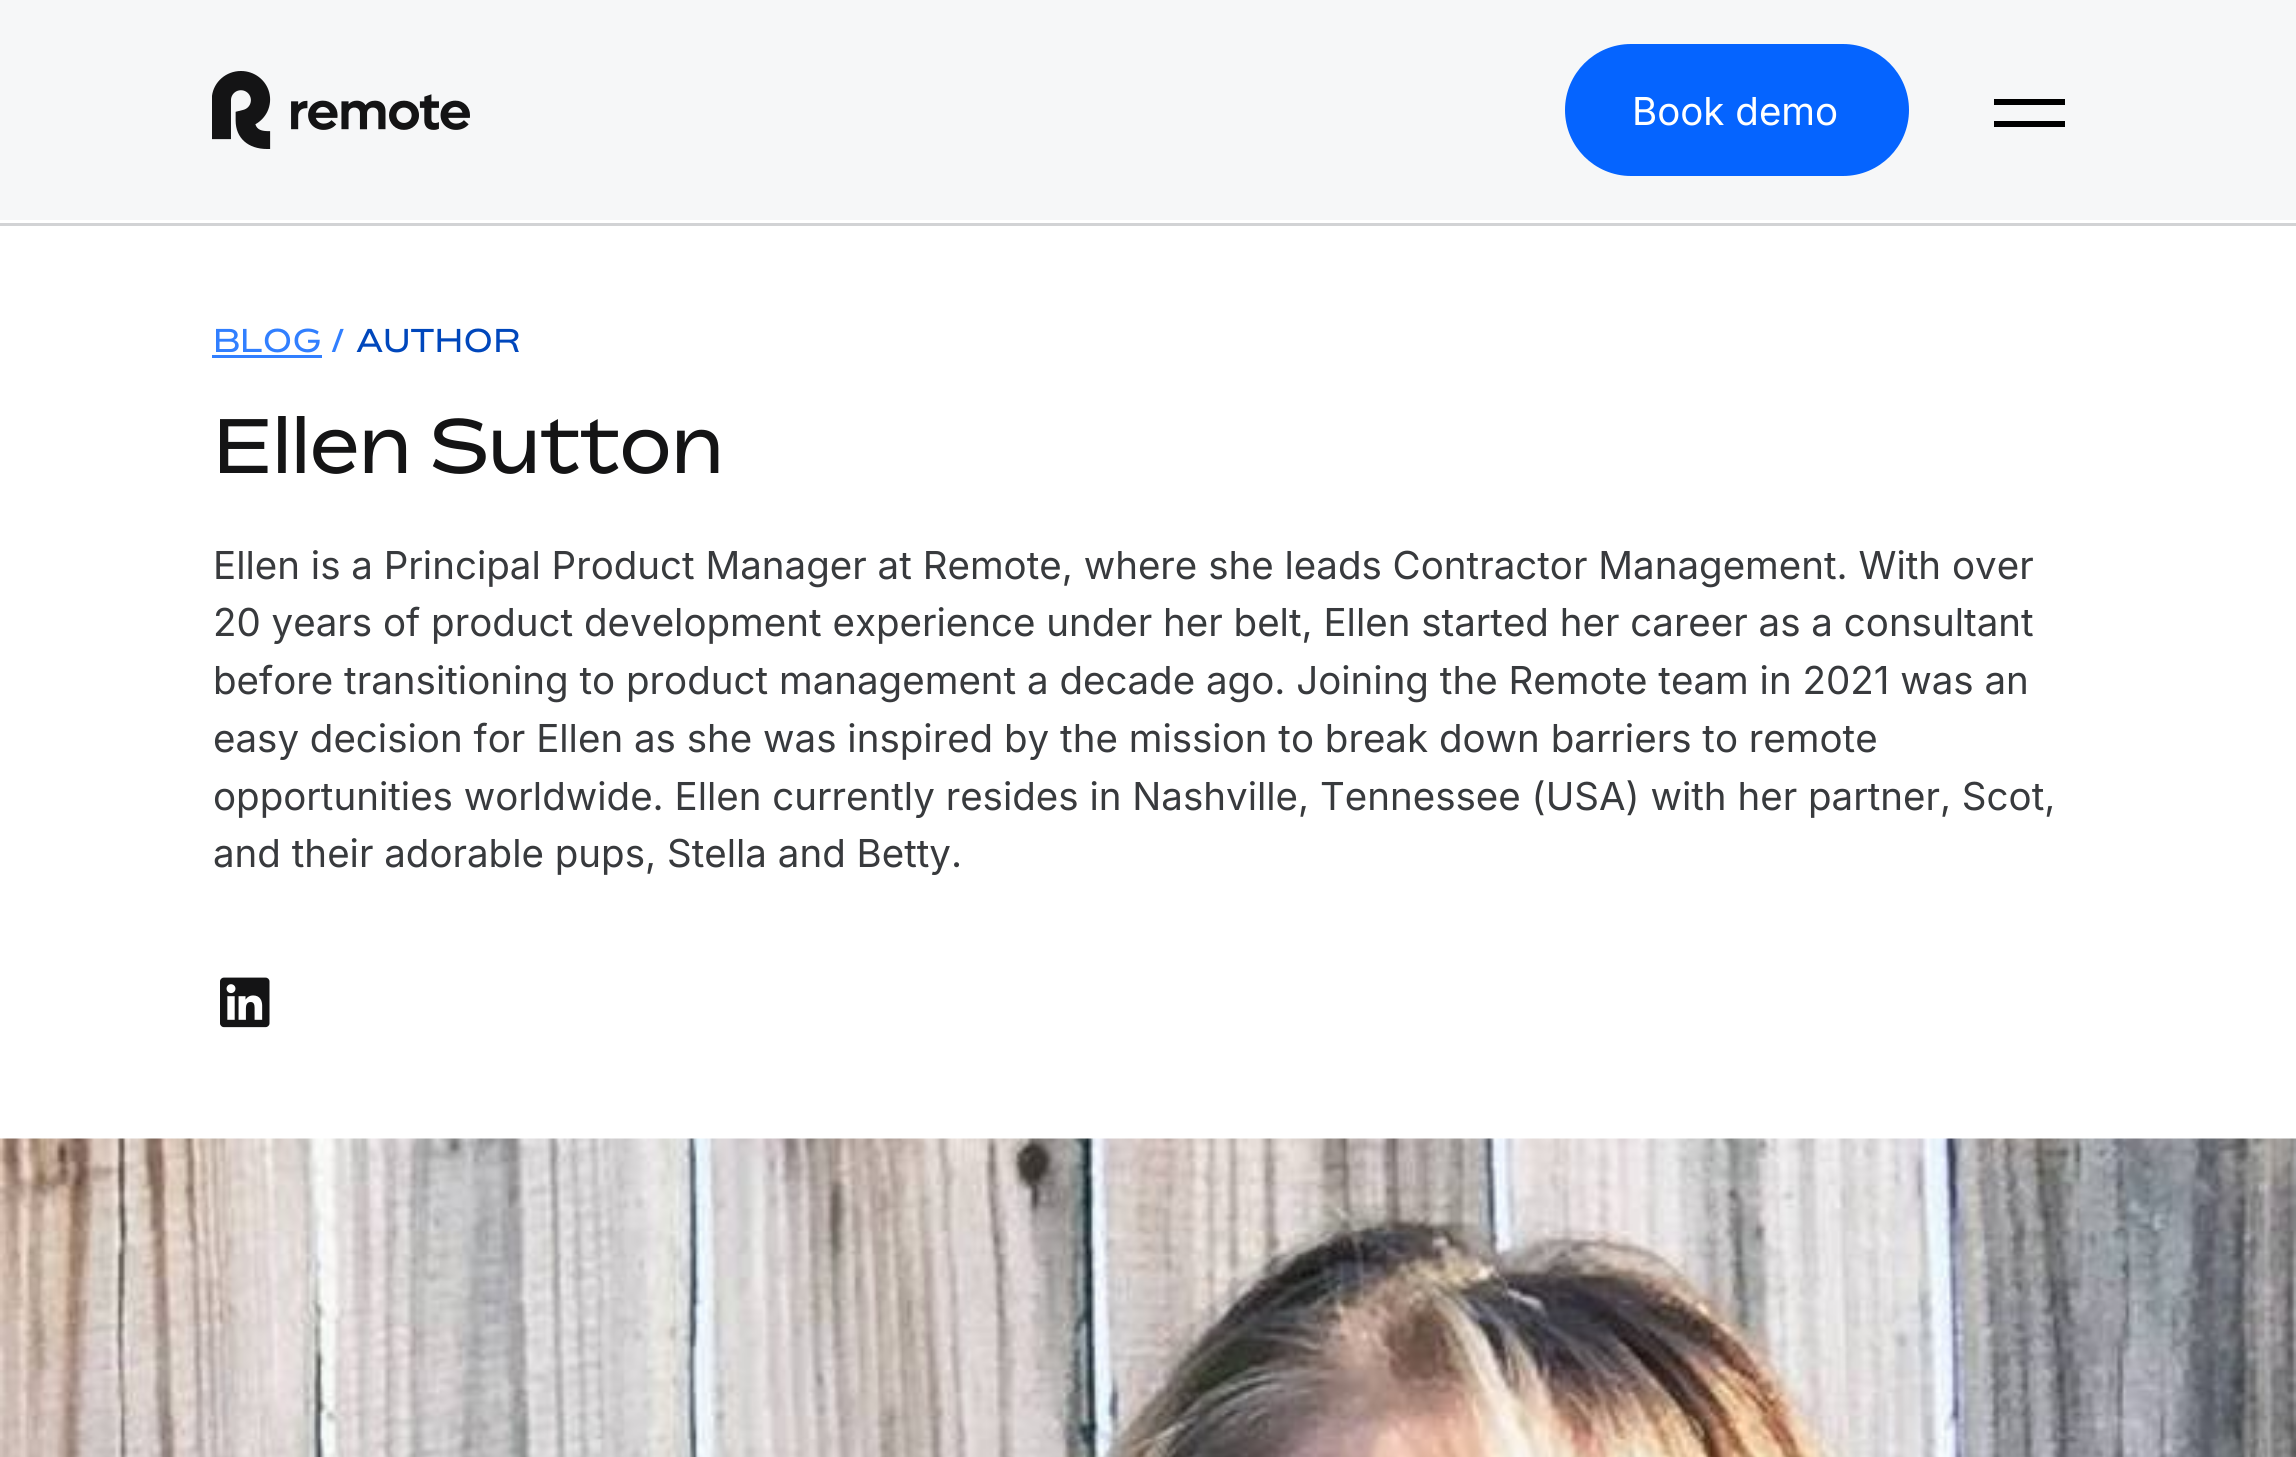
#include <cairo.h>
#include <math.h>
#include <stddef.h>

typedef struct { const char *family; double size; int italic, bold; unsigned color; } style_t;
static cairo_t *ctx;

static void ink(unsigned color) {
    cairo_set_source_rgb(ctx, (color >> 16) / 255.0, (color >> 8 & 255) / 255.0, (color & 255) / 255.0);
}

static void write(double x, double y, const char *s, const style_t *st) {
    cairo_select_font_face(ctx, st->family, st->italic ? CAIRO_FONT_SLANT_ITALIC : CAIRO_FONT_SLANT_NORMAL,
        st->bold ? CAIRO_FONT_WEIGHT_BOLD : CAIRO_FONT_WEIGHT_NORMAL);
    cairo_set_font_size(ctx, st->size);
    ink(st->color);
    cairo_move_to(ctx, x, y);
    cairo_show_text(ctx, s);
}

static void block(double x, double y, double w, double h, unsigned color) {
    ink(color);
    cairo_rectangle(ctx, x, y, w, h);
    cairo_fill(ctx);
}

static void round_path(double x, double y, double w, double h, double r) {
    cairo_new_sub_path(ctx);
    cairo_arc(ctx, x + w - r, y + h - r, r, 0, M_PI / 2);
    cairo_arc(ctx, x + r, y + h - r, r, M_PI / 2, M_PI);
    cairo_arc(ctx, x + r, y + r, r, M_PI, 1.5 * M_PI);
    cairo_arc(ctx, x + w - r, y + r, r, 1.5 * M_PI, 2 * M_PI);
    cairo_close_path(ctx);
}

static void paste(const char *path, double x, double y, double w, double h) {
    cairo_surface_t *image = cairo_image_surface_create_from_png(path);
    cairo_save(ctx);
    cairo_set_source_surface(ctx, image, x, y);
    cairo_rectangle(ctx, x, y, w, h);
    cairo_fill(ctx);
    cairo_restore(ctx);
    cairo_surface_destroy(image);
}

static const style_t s1 = {"Inter", 38.5, 0, 0, 0xffffff};
static const style_t s2 = {"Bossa", 33, 0, 0, 0x317fff};
static const style_t s3 = {"Bossa", 33, 0, 0, 0x0047bc};
static const style_t s4 = {"Bossa", 77, 0, 0, 0x141415};
static const style_t s5 = {"Inter", 38.5, 0, 0, 0x383a3d};

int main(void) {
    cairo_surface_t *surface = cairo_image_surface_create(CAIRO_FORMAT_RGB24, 2296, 1457);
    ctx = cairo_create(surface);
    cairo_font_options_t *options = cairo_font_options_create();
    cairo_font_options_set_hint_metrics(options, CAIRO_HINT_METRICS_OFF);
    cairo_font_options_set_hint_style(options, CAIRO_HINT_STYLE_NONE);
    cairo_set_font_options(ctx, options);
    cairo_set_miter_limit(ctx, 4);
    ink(0xffffff);
    cairo_paint(ctx);
    block(0, 0, 2296, 220, 0xf6f7f8);
    paste("pic1.png", 212, 71, 258, 78);
    ink(0x0564ff);
    round_path(1566.5, 45.5, 341, 129, 64.5);
    cairo_fill_preserve(ctx);
    cairo_set_line_width(ctx, 3);
    cairo_stroke(ctx);
    write(1632, 125, "Book demo", &s1);
    block(1994, 99, 71, 6, 0x000000);
    block(1994, 121, 71, 6, 0x000000);
    block(0, 223, 2296, 3, 0xd2d3d5);
    write(213, 352, "BLOG /", &s2);
    block(212, 355, 110, 3, 0x317fff);
    write(356, 352, "AUTHOR", &s3);
    write(213, 473, "Ellen Sutton", &s4);
    write(213, 579, "Ellen is a Principal Product Manager at Remote, where she leads Contractor Management. With over", &s5);
    write(213, 636, "20 years of product development experience under her belt, Ellen started her career as a consultant", &s5);
    write(213, 694, "before transitioning to product management a decade ago. Joining the Remote team in 2021 was an", &s5);
    write(213, 752, "easy decision for Ellen as she was inspired by the mission to break down barriers to remote", &s5);
    write(213, 810, "opportunities worldwide. Ellen currently resides in Nashville, Tennessee (USA) with her partner, Scot,", &s5);
    write(213, 867, "and their adorable pups, Stella and Betty.", &s5);
    paste("pic2.png", 220, 977, 50, 51);
    paste("pic3.png", 0, 1138, 2296, 319);
    cairo_surface_write_to_png(surface, "screenshot.png");
    cairo_font_options_destroy(options);
    cairo_destroy(ctx);
    cairo_surface_destroy(surface);
    return 0;
}
